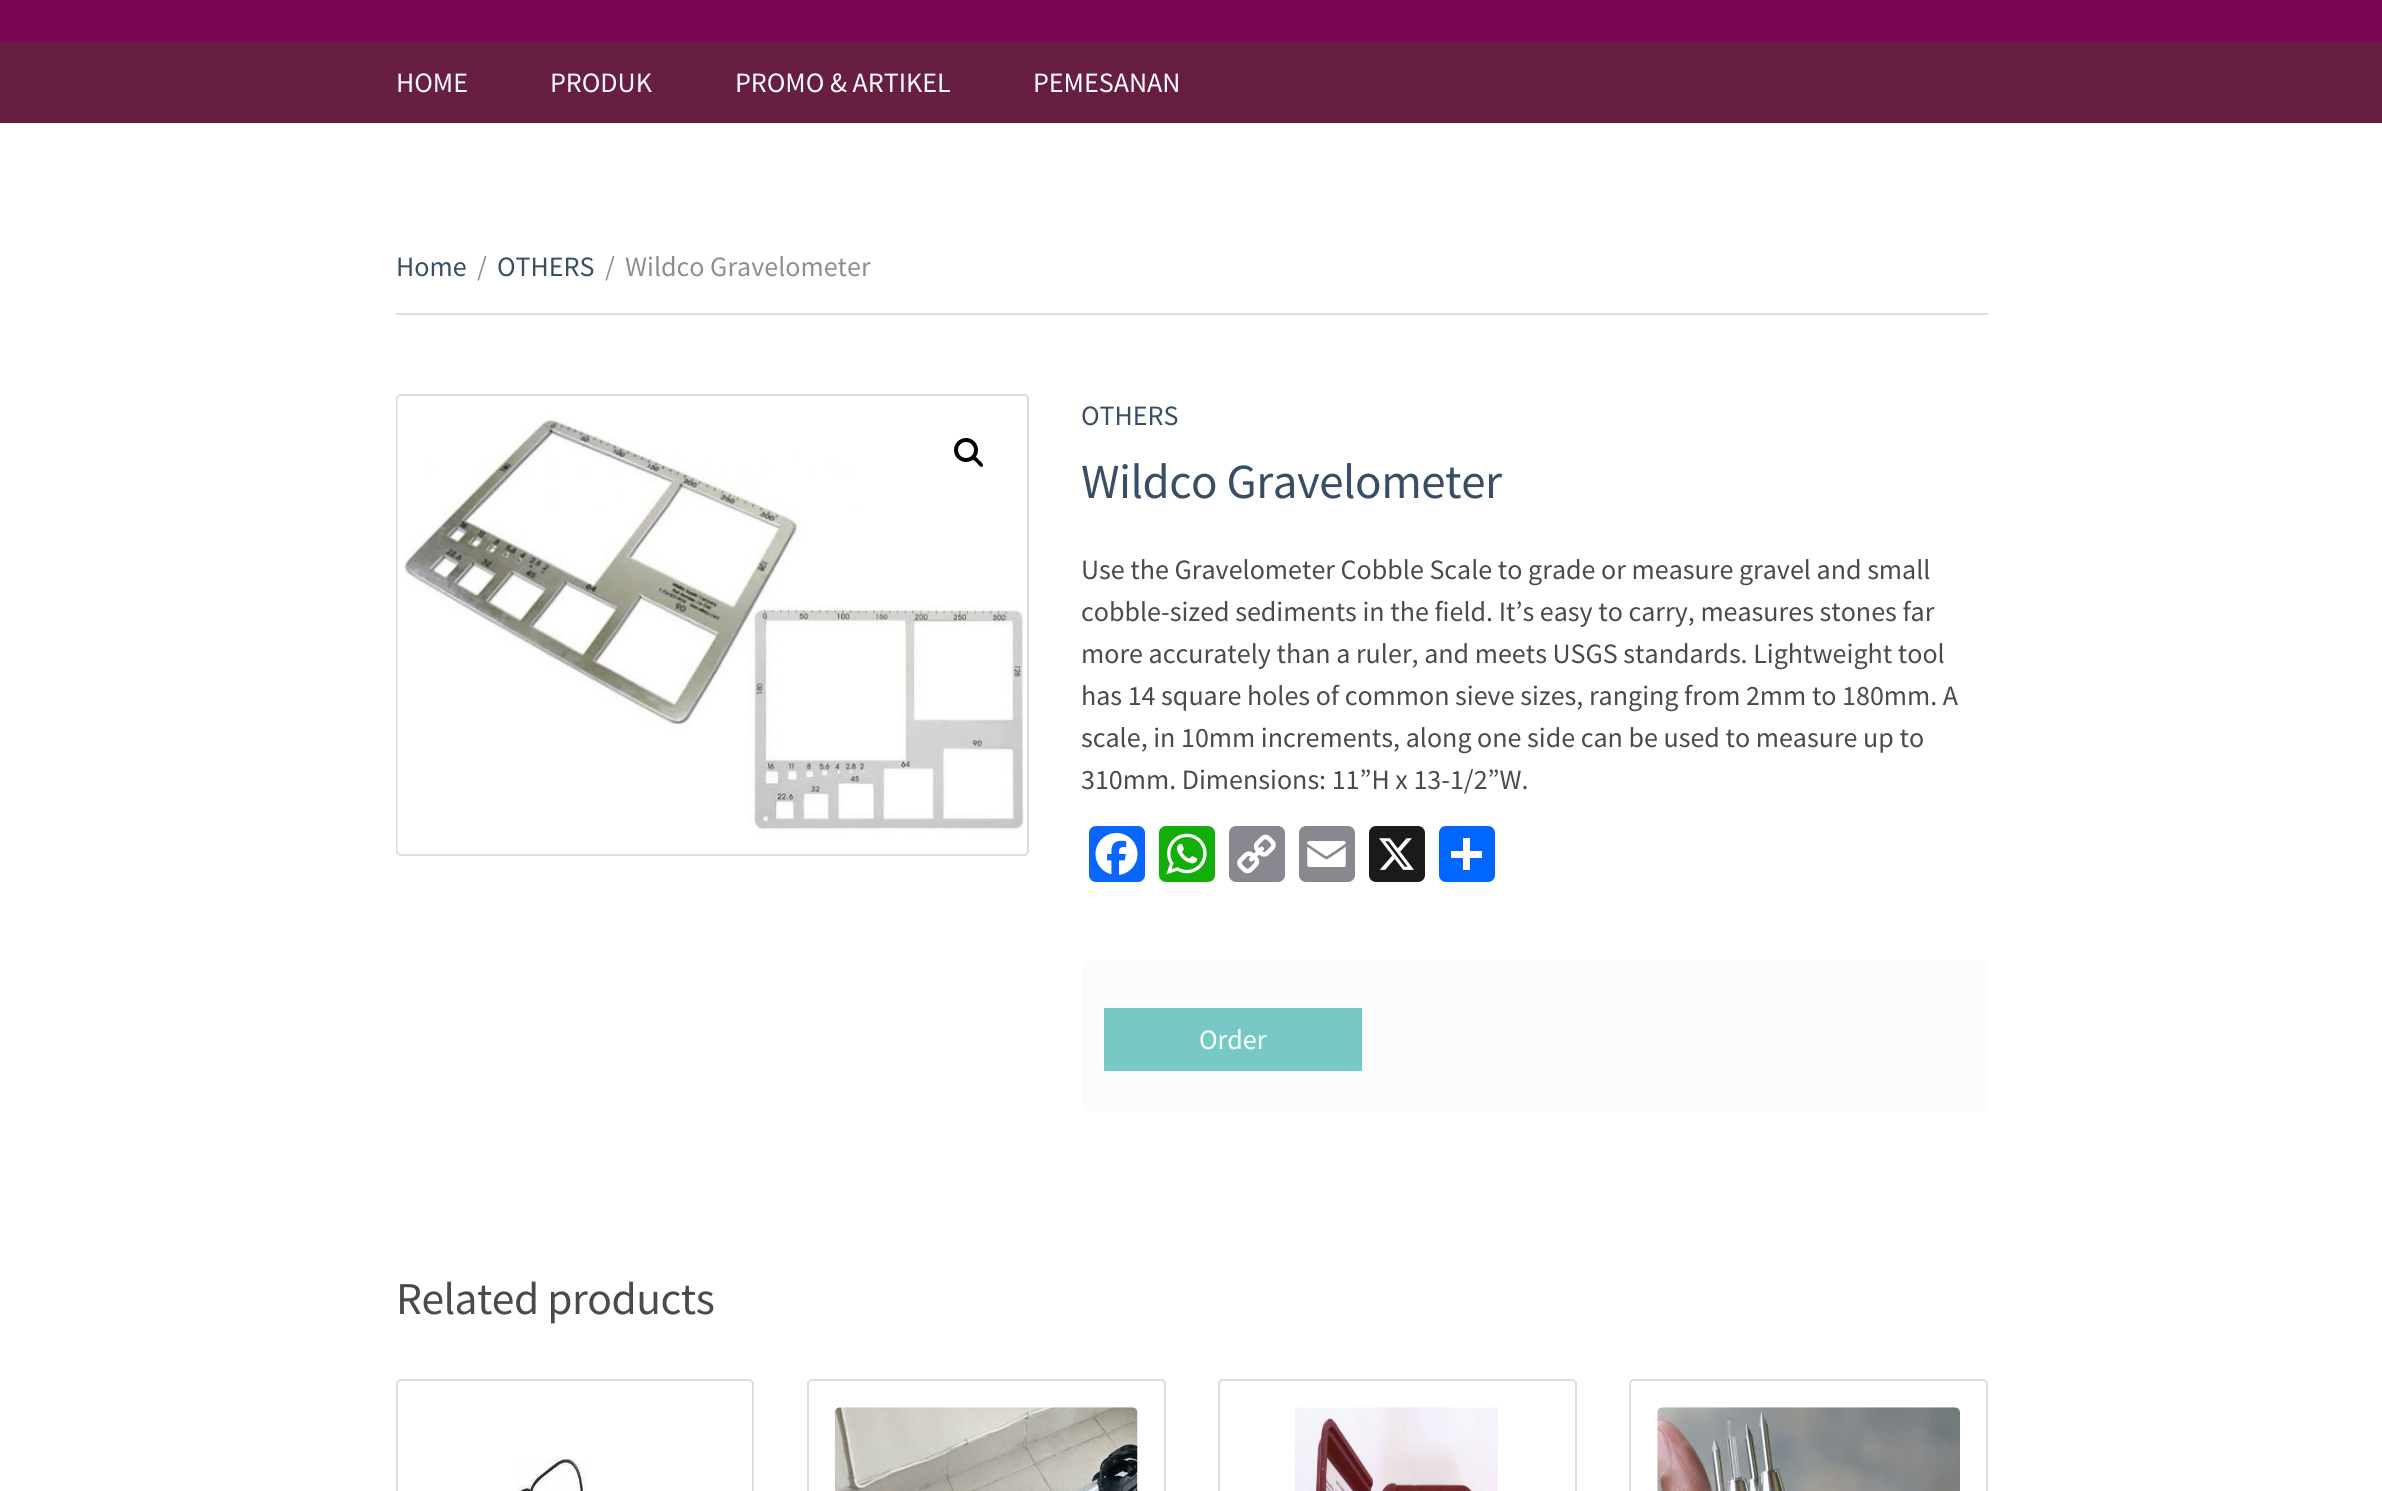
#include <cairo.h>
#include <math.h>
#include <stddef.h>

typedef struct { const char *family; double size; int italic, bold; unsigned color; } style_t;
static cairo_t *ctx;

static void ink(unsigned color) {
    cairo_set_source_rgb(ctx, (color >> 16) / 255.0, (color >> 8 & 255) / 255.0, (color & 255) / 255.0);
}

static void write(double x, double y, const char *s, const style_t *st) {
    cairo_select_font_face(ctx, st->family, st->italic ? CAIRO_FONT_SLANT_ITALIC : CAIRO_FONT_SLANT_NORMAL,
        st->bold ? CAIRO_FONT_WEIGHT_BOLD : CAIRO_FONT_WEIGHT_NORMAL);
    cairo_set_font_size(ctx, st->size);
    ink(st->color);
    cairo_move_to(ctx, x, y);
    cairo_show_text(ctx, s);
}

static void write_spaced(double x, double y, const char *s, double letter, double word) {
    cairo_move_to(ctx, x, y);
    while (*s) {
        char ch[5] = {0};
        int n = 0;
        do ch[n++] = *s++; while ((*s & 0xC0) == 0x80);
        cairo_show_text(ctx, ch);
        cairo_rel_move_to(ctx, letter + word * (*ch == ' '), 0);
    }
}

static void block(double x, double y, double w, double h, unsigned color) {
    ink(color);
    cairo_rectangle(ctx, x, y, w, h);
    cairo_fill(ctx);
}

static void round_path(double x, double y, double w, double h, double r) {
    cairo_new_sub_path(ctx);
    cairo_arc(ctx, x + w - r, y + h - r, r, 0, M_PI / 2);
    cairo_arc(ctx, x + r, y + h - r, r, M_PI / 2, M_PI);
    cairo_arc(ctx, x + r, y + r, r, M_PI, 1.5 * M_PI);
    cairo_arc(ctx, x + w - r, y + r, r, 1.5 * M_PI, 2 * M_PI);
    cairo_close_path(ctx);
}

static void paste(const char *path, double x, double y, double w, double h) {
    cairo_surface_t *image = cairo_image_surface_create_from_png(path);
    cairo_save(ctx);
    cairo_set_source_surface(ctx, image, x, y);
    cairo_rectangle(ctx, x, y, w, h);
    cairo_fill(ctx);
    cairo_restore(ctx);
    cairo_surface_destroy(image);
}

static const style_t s1 = {"Source Sans Pro", 28, 0, 0, 0xffffff};
static const style_t s2 = {"Source Sans Pro", 28, 0, 0, 0x394e64};
static const style_t s3 = {"Source Sans Pro", 28, 0, 0, 0x8e8e8e};
static const style_t s4 = {"Source Sans Pro", 28, 0, 0, 0x4a4a4a};

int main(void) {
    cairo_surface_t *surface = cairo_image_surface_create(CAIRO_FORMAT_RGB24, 2382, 1491);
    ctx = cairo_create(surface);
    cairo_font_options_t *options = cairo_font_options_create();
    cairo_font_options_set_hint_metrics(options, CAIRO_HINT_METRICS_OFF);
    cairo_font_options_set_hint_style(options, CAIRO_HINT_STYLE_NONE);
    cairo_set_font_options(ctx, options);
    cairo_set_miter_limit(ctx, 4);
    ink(0xffffff);
    cairo_paint(ctx);
    block(0, 0, 2382, 42, 0x7b0551);
    block(0, 42, 2382, 81, 0x671e40);
    write(396, 92, "HOME", &s1);
    write(550, 92, "PRODUK", &s1);
    write(735, 92, "PROMO & ARTIKEL", &s1);
    write(1033, 92, "PEMESANAN", &s1);
    block(396, 313, 1592, 2, 0xdddddd);
    write(396, 276, "Home", &s2);
    write(477, 276, "/", &s3);
    write(497, 276, "OTHERS", &s2);
    write(605, 276, "/", &s3);
    write(625, 276, "Wildco Gravelometer", &s3);
    round_path(397, 395, 631, 460, 4);
    ink(0xdddddd);
    cairo_stroke(ctx);
    paste("pic1.png", 397, 397, 628, 457);
    cairo_arc(ctx, 966, 450, 10, 0, 2 * M_PI);
    ink(0x000000);
    cairo_set_line_width(ctx, 4);
    cairo_stroke(ctx);
    cairo_new_path(ctx);
    cairo_move_to(ctx, 972.5, 456.5);
    cairo_curve_to(ctx, 974.5, 454.5, 978, 459, 979, 460);
    cairo_curve_to(ctx, 980, 461, 984.5, 464.5, 982.5, 466.5);
    cairo_curve_to(ctx, 980.5, 468.5, 977.5, 463.5, 976.5, 462.5);
    cairo_curve_to(ctx, 975.5, 461.5, 970.5, 458.5, 972.5, 456.5);
    cairo_close_path(ctx);
    cairo_fill(ctx);
    write(1081, 425, "OTHERS", &s2);
    cairo_set_font_size(ctx, 49);
    write_spaced(1081, 498, "Wildco Gravelometer", -0.5, 0);
    write(1081, 579, "Use the Gravelometer Cobble Scale to grade or measure gravel and small", &s4);
    write(1081, 621, "cobble-sized sediments in the field. It’s easy to carry, measures stones far", &s4);
    write(1081, 663, "more accurately than a ruler, and meets USGS standards. Lightweight tool", &s4);
    write(1081, 705, "has 14 square holes of common sieve sizes, ranging from 2mm to 180mm. A", &s4);
    write(1081, 747, "scale, in 10mm increments, along one side can be used to measure up to", &s4);
    write(1081, 789, "310mm. Dimensions: 11”H x 13-1/2”W.", &s4);
    ink(0x0866ff);
    round_path(1089, 826, 56, 56, 7);
    cairo_fill(ctx);
    paste("pic2.png", 1095, 833, 43, 42);
    ink(0x12af0a);
    round_path(1159, 826, 56, 56, 7);
    cairo_fill(ctx);
    paste("pic3.png", 1166, 833, 41, 42);
    ink(0x888990);
    round_path(1229, 826, 56, 56, 7);
    cairo_fill(ctx);
    paste("pic4.png", 1237, 834, 39, 40);
    round_path(1299, 826, 56, 56, 7);
    cairo_fill(ctx);
    paste("pic5.png", 1307, 841, 39, 26);
    ink(0x1a1a1a);
    round_path(1369, 826, 56, 56, 7);
    cairo_fill(ctx);
    paste("pic6.png", 1379, 838, 35, 32);
    ink(0x0166ff);
    round_path(1439, 826, 56, 56, 7);
    cairo_fill(ctx);
    block(1463, 838, 7, 32, 0xffffff);
    block(1451, 851, 31, 7, 0xffffff);
    ink(0xfbfbfb);
    round_path(1082, 961, 906, 150, 5);
    cairo_fill(ctx);
    block(1104, 1008, 258, 63, 0x77c9c6);
    write(1199, 1049, "Order", &s1);
    cairo_set_font_size(ctx, 45.5);
    ink(0x4a4a4a);
    write_spaced(396, 1314, "Related products", -0.5, 0);
    round_path(397, 1380, 356, 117, 4);
    ink(0xdddddd);
    cairo_set_line_width(ctx, 2);
    cairo_stroke(ctx);
    paste("pic7.png", 517, 1458, 68, 33);
    round_path(808, 1380, 357, 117, 4);
    cairo_stroke(ctx);
    paste("pic8.png", 834, 1407, 304, 84);
    round_path(1219, 1380, 357, 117, 4);
    cairo_stroke(ctx);
    paste("pic9.png", 1295, 1407, 203, 84);
    round_path(1630, 1380, 357, 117, 4);
    cairo_stroke(ctx);
    paste("pic10.png", 1657, 1407, 303, 84);
    cairo_surface_write_to_png(surface, "screenshot.png");
    cairo_font_options_destroy(options);
    cairo_destroy(ctx);
    cairo_surface_destroy(surface);
    return 0;
}
